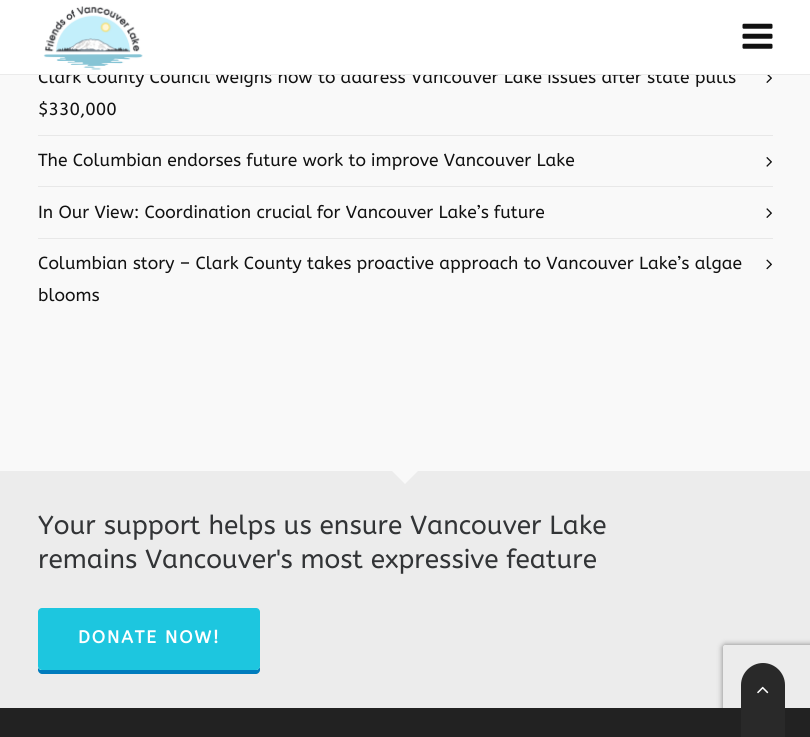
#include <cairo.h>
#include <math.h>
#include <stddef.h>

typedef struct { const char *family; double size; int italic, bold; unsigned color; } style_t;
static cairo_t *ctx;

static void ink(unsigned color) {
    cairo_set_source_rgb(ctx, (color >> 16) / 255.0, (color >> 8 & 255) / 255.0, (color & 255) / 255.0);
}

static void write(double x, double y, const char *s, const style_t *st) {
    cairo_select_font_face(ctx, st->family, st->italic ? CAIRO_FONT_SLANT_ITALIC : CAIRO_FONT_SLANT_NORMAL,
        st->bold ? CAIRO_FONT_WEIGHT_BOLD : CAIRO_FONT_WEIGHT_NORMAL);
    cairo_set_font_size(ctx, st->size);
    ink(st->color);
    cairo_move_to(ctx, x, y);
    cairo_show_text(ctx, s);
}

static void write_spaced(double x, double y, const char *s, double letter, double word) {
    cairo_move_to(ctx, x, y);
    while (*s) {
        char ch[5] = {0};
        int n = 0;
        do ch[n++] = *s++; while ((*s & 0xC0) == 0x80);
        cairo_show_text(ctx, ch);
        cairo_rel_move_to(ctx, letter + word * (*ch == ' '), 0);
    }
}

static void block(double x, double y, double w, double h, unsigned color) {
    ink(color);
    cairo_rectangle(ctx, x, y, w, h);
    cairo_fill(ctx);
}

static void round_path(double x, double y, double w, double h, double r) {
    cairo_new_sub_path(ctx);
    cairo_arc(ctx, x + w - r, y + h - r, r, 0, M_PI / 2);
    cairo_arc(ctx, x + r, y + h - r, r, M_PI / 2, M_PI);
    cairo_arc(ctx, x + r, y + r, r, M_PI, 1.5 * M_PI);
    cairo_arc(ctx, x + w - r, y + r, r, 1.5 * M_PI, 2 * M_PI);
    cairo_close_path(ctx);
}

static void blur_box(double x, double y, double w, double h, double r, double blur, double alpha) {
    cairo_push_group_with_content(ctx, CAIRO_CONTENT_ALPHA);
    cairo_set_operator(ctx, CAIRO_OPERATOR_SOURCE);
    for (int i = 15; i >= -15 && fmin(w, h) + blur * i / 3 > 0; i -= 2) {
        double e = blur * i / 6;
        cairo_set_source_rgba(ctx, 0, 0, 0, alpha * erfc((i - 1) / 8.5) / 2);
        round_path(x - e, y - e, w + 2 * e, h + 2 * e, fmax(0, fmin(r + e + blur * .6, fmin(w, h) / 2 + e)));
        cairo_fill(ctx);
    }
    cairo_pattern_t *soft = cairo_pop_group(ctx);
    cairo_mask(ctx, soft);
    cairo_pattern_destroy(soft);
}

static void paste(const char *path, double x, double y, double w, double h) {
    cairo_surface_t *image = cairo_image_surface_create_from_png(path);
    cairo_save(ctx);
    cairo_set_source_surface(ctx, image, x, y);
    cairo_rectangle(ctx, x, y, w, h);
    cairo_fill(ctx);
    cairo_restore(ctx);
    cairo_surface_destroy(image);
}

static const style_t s1 = {"ABeeZee", 17.5, 0, 0, 0x111111};
static const style_t s2 = {"ABeeZee", 26.25, 0, 0, 0x323436};

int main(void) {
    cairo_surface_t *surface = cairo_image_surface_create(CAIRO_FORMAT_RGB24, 810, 737);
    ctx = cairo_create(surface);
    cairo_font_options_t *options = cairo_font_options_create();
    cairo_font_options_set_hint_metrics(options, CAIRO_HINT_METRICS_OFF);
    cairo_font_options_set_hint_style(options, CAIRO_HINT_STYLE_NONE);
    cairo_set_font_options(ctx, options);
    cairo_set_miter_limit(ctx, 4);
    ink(0xf9f9f9);
    cairo_paint(ctx);
    write(38, 83, "Clark County Council weighs how to address Vancouver Lake issues after state pulls", &s1);
    block(0, 0, 810, 74, 0xffffff);
    block(0, 74, 810, 1, 0xebebeb);
    paste("pic1.png", 43, 6, 100, 64);
    paste("pic2.png", 742, 23, 31, 26);
    paste("pic3.png", 766, 75, 6, 8);
    write(38, 115, "$330,000", &s1);
    block(38, 135, 735, 1, 0xe8e8e8);
    write(38, 166, "The Columbian endorses future work to improve Vancouver Lake", &s1);
    paste("pic4.png", 766, 157, 6, 10);
    block(38, 186, 735, 1, 0xe8e8e8);
    write(38, 218, "In Our View: Coordination crucial for Vancouver Lake’s future", &s1);
    paste("pic5.png", 766, 208, 6, 10);
    block(38, 238, 735, 1, 0xe8e8e8);
    write(38, 269, "Columbian story – Clark County takes proactive approach to Vancouver Lake’s algae", &s1);
    paste("pic6.png", 766, 259, 6, 11);
    write(38, 301, "blooms", &s1);
    block(0, 471, 810, 237, 0xececec);
    ink(0xf9f9f9);
    cairo_new_path(ctx);
    cairo_move_to(ctx, 391, 470);
    cairo_line_to(ctx, 419, 470);
    cairo_line_to(ctx, 405, 484);
    cairo_close_path(ctx);
    cairo_fill(ctx);
    write(38, 534, "Your support helps us ensure Vancouver Lake", &s2);
    write(38, 568, "remains Vancouver's most expressive feature", &s2);
    ink(0x007cbd);
    cairo_new_path(ctx);
    cairo_move_to(ctx, 38, 668);
    cairo_line_to(ctx, 38, 670);
    cairo_curve_to(ctx, 38, 672, 40, 674, 42, 674);
    cairo_line_to(ctx, 256, 674);
    cairo_curve_to(ctx, 258, 674, 260, 672, 260, 670);
    cairo_line_to(ctx, 260, 666);
    cairo_curve_to(ctx, 260, 668, 258, 670, 256, 670);
    cairo_line_to(ctx, 41, 670);
    cairo_curve_to(ctx, 40, 670, 39, 669, 38, 668);
    cairo_close_path(ctx);
    cairo_fill(ctx);
    ink(0x1dc6df);
    round_path(38, 608, 222, 62, 4);
    cairo_fill(ctx);
    cairo_select_font_face(ctx, "ABeeZee", CAIRO_FONT_SLANT_NORMAL, CAIRO_FONT_WEIGHT_BOLD);
    cairo_set_font_size(ctx, 17.5);
    ink(0xffffff);
    write_spaced(78, 643, "DONATE NOW!", 1.9, 0);
    cairo_save(ctx);
    cairo_set_fill_rule(ctx, CAIRO_FILL_RULE_EVEN_ODD);
    cairo_new_path(ctx);
    cairo_move_to(ctx, 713, 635);
    cairo_line_to(ctx, 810, 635);
    cairo_line_to(ctx, 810, 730);
    cairo_line_to(ctx, 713, 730);
    cairo_close_path(ctx);
    cairo_move_to(ctx, 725.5, 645);
    cairo_line_to(ctx, 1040.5, 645);
    cairo_curve_to(ctx, 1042, 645, 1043, 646, 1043, 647.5);
    cairo_line_to(ctx, 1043, 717.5);
    cairo_curve_to(ctx, 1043, 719, 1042, 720, 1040.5, 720);
    cairo_line_to(ctx, 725.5, 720);
    cairo_curve_to(ctx, 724, 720, 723, 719, 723, 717.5);
    cairo_line_to(ctx, 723, 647.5);
    cairo_curve_to(ctx, 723, 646, 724, 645, 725.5, 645);
    cairo_close_path(ctx);
    cairo_clip(ctx);
    ink(0x808080);
    blur_box(723, 645, 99, 75, 2.5, 3, 1);
    cairo_restore(ctx);
    block(0, 708, 810, 29, 0x222222);
    ink(0x292929);
    cairo_new_path(ctx);
    cairo_move_to(ctx, 763, 663);
    cairo_curve_to(ctx, 775, 663, 785, 673, 785, 685);
    cairo_line_to(ctx, 785, 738);
    cairo_line_to(ctx, 741, 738);
    cairo_line_to(ctx, 741, 685);
    cairo_curve_to(ctx, 741, 673, 751, 663, 763, 663);
    cairo_close_path(ctx);
    cairo_fill(ctx);
    paste("pic7.png", 757, 686, 12, 8);
    cairo_surface_write_to_png(surface, "screenshot.png");
    cairo_font_options_destroy(options);
    cairo_destroy(ctx);
    cairo_surface_destroy(surface);
    return 0;
}
